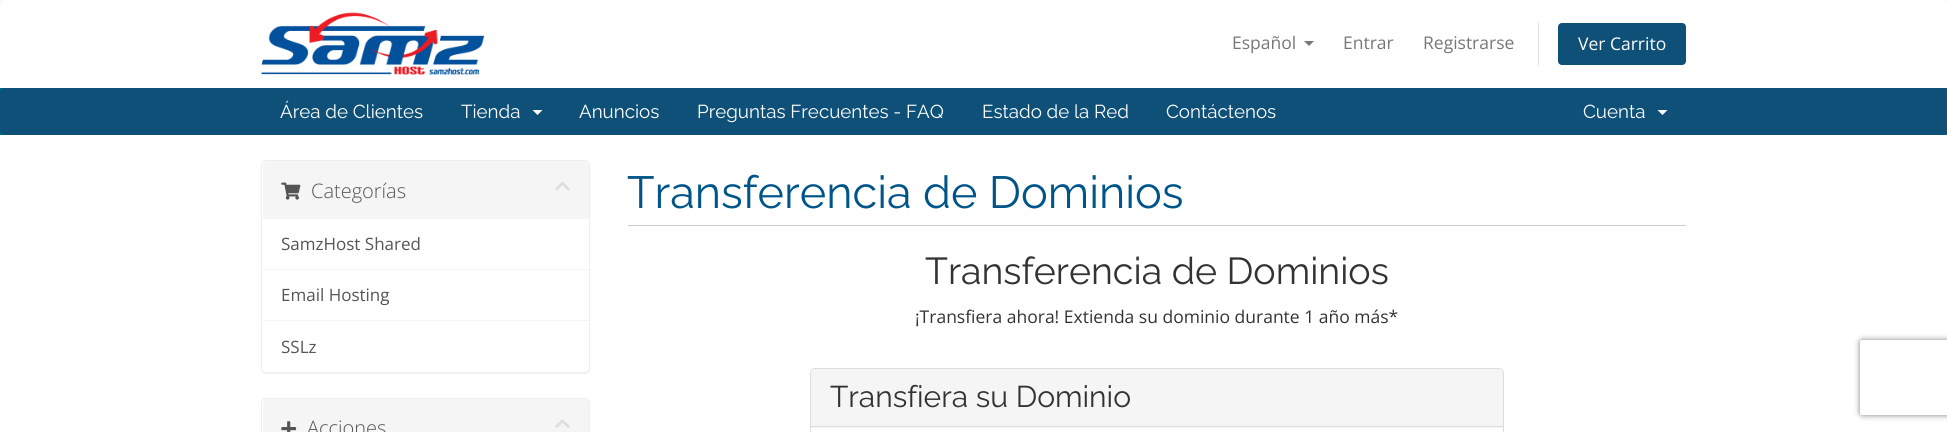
#include <cairo.h>
#include <math.h>
#include <stddef.h>

typedef struct { const char *family; double size; int italic, bold; unsigned color; } style_t;
static cairo_t *ctx;

static void ink(unsigned color) {
    cairo_set_source_rgb(ctx, (color >> 16) / 255.0, (color >> 8 & 255) / 255.0, (color & 255) / 255.0);
}

static void write(double x, double y, const char *s, const style_t *st) {
    cairo_select_font_face(ctx, st->family, st->italic ? CAIRO_FONT_SLANT_ITALIC : CAIRO_FONT_SLANT_NORMAL,
        st->bold ? CAIRO_FONT_WEIGHT_BOLD : CAIRO_FONT_WEIGHT_NORMAL);
    cairo_set_font_size(ctx, st->size);
    ink(st->color);
    cairo_move_to(ctx, x, y);
    cairo_show_text(ctx, s);
}

static void block(double x, double y, double w, double h, unsigned color) {
    ink(color);
    cairo_rectangle(ctx, x, y, w, h);
    cairo_fill(ctx);
}

static void round_path(double x, double y, double w, double h, double r) {
    cairo_new_sub_path(ctx);
    cairo_arc(ctx, x + w - r, y + h - r, r, 0, M_PI / 2);
    cairo_arc(ctx, x + r, y + h - r, r, M_PI / 2, M_PI);
    cairo_arc(ctx, x + r, y + r, r, M_PI, 1.5 * M_PI);
    cairo_arc(ctx, x + w - r, y + r, r, 1.5 * M_PI, 2 * M_PI);
    cairo_close_path(ctx);
}

static void blur_box(double x, double y, double w, double h, double r, double blur, double alpha) {
    cairo_push_group_with_content(ctx, CAIRO_CONTENT_ALPHA);
    cairo_set_operator(ctx, CAIRO_OPERATOR_SOURCE);
    for (int i = 15; i >= -15 && fmin(w, h) + blur * i / 3 > 0; i -= 2) {
        double e = blur * i / 6;
        cairo_set_source_rgba(ctx, 0, 0, 0, alpha * erfc((i - 1) / 8.5) / 2);
        round_path(x - e, y - e, w + 2 * e, h + 2 * e, fmax(0, fmin(r + e + blur * .6, fmin(w, h) / 2 + e)));
        cairo_fill(ctx);
    }
    cairo_pattern_t *soft = cairo_pop_group(ctx);
    cairo_mask(ctx, soft);
    cairo_pattern_destroy(soft);
}

static void paste(const char *path, double x, double y, double w, double h) {
    cairo_surface_t *image = cairo_image_surface_create_from_png(path);
    cairo_save(ctx);
    cairo_set_source_surface(ctx, image, x, y);
    cairo_rectangle(ctx, x, y, w, h);
    cairo_fill(ctx);
    cairo_restore(ctx);
    cairo_surface_destroy(image);
}

static const style_t s1 = {"Open Sans", 17.5, 0, 0, 0x777777};
static const style_t s2 = {"Open Sans", 17.5, 0, 0, 0xffffff};
static const style_t s3 = {"Raleway", 18.75, 0, 0, 0xffffff};
static const style_t s4 = {"Open Sans Light", 20, 0, 0, 0x555555};
static const style_t s5 = {"Open Sans", 17, 0, 0, 0x555555};
static const style_t s6 = {"Raleway", 45, 0, 0, 0x005588};
static const style_t s7 = {"Raleway", 37.5, 0, 0, 0x333333};
static const style_t s8 = {"Open Sans", 17.5, 0, 0, 0x333333};
static const style_t s9 = {"Raleway", 30, 0, 0, 0x333333};

int main(void) {
    cairo_surface_t *surface = cairo_image_surface_create(CAIRO_FORMAT_RGB24, 1947, 432);
    ctx = cairo_create(surface);
    cairo_font_options_t *options = cairo_font_options_create();
    cairo_font_options_set_hint_metrics(options, CAIRO_HINT_METRICS_OFF);
    cairo_font_options_set_hint_style(options, CAIRO_HINT_STYLE_NONE);
    cairo_set_font_options(ctx, options);
    cairo_set_miter_limit(ctx, 4);
    ink(0xf8f8f8);
    cairo_paint(ctx);
    ink(0xffffff);
    cairo_new_path(ctx);
    cairo_move_to(ctx, 6, 0);
    cairo_line_to(ctx, 1942, 0);
    cairo_curve_to(ctx, 1945.5, 0, 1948, 2.5, 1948, 6);
    cairo_line_to(ctx, 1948, 88);
    cairo_line_to(ctx, 0, 88);
    cairo_line_to(ctx, 0, 6);
    cairo_curve_to(ctx, 0, 2.5, 2.5, 0, 6, 0);
    cairo_close_path(ctx);
    cairo_fill(ctx);
    paste("pic1.png", 261, 12, 224, 63);
    write(1232, 49, "Español", &s1);
    cairo_new_path(ctx);
    cairo_move_to(ctx, 1304, 41);
    cairo_line_to(ctx, 1314, 41);
    cairo_line_to(ctx, 1309, 46);
    cairo_close_path(ctx);
    cairo_fill(ctx);
    write(1343, 49, "Entrar", &s1);
    write(1423, 49, "Registrarse", &s1);
    block(1538, 23, 1, 42, 0xdddddd);
    ink(0x0e5077);
    round_path(1558, 23, 128, 42, 4);
    cairo_fill(ctx);
    write(1578, 50, "Ver Carrito", &s2);
    block(0, 88, 1947, 47, 0x006687);
    ink(0x0e5077);
    round_path(0, 88, 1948, 47, 5);
    cairo_fill(ctx);
    write(280, 118, "Área de Clientes", &s3);
    write(461, 118, "Tienda", &s3);
    cairo_new_path(ctx);
    cairo_move_to(ctx, 532.5, 110);
    cairo_line_to(ctx, 542.5, 110);
    cairo_line_to(ctx, 537.5, 115);
    cairo_close_path(ctx);
    cairo_fill(ctx);
    write(579, 118, "Anuncios", &s3);
    write(697, 118, "Preguntas Frecuentes - FAQ", &s3);
    write(982, 118, "Estado de la Red", &s3);
    write(1166, 118, "Contáctenos", &s3);
    write(1583, 118, "Cuenta", &s3);
    cairo_new_path(ctx);
    cairo_move_to(ctx, 1657.5, 110);
    cairo_line_to(ctx, 1667.5, 110);
    cairo_line_to(ctx, 1662.5, 115);
    cairo_close_path(ctx);
    cairo_fill(ctx);
    block(0, 135, 1947, 297, 0xffffff);
    ink(0x000000);
    blur_box(261, 161, 329, 213, 5, 0.5, 0.05);
    ink(0xffffff);
    round_path(261.5, 160.5, 328, 212, 4.5);
    cairo_fill_preserve(ctx);
    ink(0xeeeeee);
    cairo_set_line_width(ctx, 1);
    cairo_stroke(ctx);
    ink(0xf5f5f5);
    cairo_new_path(ctx);
    cairo_move_to(ctx, 267, 161);
    cairo_line_to(ctx, 585, 161);
    cairo_curve_to(ctx, 587, 161, 589, 163, 589, 165);
    cairo_line_to(ctx, 589, 219);
    cairo_line_to(ctx, 263, 219);
    cairo_line_to(ctx, 263, 165);
    cairo_curve_to(ctx, 263, 163, 265, 161, 267, 161);
    cairo_close_path(ctx);
    cairo_fill(ctx);
    paste("pic2.png", 281, 182, 20, 18);
    write(311, 198, "Categorías", &s4);
    paste("pic3.png", 555, 181, 15, 10);
    block(263, 269, 326, 1, 0xf5f5f5);
    write(281, 250, "SamzHost Shared", &s5);
    block(263, 320, 326, 1, 0xf5f5f5);
    write(281, 301, "Email Hosting", &s5);
    write(281, 353, "SSLz", &s5);
    round_path(261.5, 398.5, 328, 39, 4.5);
    ink(0xeeeeee);
    cairo_stroke(ctx);
    ink(0xf5f5f5);
    cairo_new_path(ctx);
    cairo_move_to(ctx, 267, 399);
    cairo_line_to(ctx, 585, 399);
    cairo_curve_to(ctx, 587, 399, 589, 401, 589, 403);
    cairo_line_to(ctx, 589, 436);
    cairo_line_to(ctx, 263, 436);
    cairo_line_to(ctx, 263, 403);
    cairo_curve_to(ctx, 263, 401, 265, 399, 267, 399);
    cairo_close_path(ctx);
    cairo_fill(ctx);
    paste("pic4.png", 281, 421, 16, 11);
    write(307, 435, "Acciones", &s4);
    paste("pic5.png", 555, 419, 15, 9);
    block(628, 225, 1058, 1, 0xcccccc);
    write(627, 208, "Transferencia de Dominios", &s6);
    write(925, 284, "Transferencia de Dominios", &s7);
    write(915, 323, "¡Transfiera ahora! Extienda su dominio durante 1 año más*", &s8);
    round_path(810.5, 368.5, 693, 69, 4.5);
    ink(0xdddddd);
    cairo_stroke(ctx);
    ink(0xf5f5f5);
    cairo_new_path(ctx);
    cairo_move_to(ctx, 815, 369);
    cairo_line_to(ctx, 1499, 369);
    cairo_curve_to(ctx, 1501, 369, 1503, 371, 1503, 373);
    cairo_line_to(ctx, 1503, 428);
    cairo_line_to(ctx, 811, 428);
    cairo_line_to(ctx, 811, 373);
    cairo_curve_to(ctx, 811, 371, 813, 369, 815, 369);
    cairo_close_path(ctx);
    cairo_fill(ctx);
    block(811, 426, 692, 1, 0xdddddd);
    write(830, 407, "Transfiera su Dominio", &s9);
    cairo_save(ctx);
    cairo_set_fill_rule(ctx, CAIRO_FILL_RULE_EVEN_ODD);
    cairo_new_path(ctx);
    cairo_move_to(ctx, 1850, 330);
    cairo_line_to(ctx, 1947, 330);
    cairo_line_to(ctx, 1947, 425);
    cairo_line_to(ctx, 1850, 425);
    cairo_close_path(ctx);
    cairo_move_to(ctx, 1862.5, 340);
    cairo_line_to(ctx, 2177.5, 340);
    cairo_curve_to(ctx, 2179, 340, 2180, 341, 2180, 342.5);
    cairo_line_to(ctx, 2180, 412.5);
    cairo_curve_to(ctx, 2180, 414, 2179, 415, 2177.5, 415);
    cairo_line_to(ctx, 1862.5, 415);
    cairo_curve_to(ctx, 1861, 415, 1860, 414, 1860, 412.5);
    cairo_line_to(ctx, 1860, 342.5);
    cairo_curve_to(ctx, 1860, 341, 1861, 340, 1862.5, 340);
    cairo_close_path(ctx);
    cairo_clip(ctx);
    ink(0x808080);
    blur_box(1860, 340, 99, 75, 2.5, 3, 1);
    cairo_restore(ctx);
    cairo_surface_write_to_png(surface, "screenshot.png");
    cairo_font_options_destroy(options);
    cairo_destroy(ctx);
    cairo_surface_destroy(surface);
    return 0;
}
